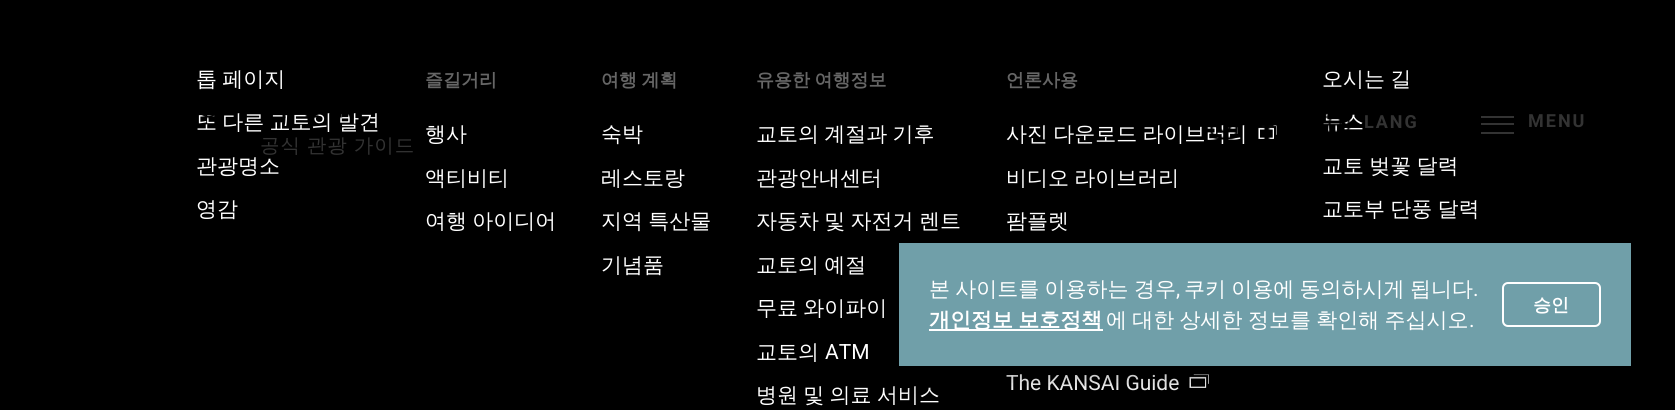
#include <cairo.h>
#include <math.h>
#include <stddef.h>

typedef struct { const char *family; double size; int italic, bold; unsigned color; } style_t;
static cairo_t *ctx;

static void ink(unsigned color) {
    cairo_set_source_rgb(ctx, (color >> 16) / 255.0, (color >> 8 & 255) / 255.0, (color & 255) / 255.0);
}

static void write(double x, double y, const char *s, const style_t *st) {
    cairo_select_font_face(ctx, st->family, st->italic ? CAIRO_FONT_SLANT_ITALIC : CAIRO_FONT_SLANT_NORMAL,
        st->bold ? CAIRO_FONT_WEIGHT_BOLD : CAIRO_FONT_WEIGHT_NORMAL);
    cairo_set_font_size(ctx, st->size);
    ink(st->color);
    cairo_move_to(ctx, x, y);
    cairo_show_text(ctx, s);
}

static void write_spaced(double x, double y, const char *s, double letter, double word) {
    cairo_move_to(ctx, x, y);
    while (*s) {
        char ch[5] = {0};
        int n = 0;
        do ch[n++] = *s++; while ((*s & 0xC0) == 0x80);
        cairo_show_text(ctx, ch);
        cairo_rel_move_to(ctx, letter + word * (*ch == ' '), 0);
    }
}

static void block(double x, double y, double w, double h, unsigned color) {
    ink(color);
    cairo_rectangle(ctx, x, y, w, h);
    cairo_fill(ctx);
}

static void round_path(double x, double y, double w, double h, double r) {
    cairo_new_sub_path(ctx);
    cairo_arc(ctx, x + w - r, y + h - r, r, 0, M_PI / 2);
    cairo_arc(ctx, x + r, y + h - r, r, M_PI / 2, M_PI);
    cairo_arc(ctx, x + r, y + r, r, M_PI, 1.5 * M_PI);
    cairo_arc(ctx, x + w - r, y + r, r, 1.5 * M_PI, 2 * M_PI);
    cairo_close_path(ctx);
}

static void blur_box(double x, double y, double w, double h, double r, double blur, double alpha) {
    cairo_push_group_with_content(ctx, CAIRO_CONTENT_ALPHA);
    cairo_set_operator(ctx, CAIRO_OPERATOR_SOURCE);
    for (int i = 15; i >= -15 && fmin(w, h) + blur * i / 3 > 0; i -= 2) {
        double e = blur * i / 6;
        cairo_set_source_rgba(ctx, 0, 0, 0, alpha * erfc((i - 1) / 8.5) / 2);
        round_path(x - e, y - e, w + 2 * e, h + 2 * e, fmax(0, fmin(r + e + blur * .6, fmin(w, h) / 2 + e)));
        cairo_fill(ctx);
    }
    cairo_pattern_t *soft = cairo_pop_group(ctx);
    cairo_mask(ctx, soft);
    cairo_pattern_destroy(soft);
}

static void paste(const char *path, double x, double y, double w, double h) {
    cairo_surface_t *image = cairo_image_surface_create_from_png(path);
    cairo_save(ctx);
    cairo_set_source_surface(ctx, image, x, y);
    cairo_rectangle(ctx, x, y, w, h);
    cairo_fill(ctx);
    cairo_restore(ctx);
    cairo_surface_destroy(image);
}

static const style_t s1 = {"WenQuanYi Zen Hei Medium", 21, 0, 0, 0xffffff};
static const style_t s2 = {"WenQuanYi Zen Hei", 18, 0, 1, 0x666666};
static const style_t s3 = {"Roboto", 21, 0, 0, 0xffffff};
static const style_t s4 = {"WenQuanYi Zen Hei", 18, 0, 1, 0xffffff};

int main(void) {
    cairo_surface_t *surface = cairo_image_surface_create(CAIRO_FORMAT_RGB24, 1675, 410);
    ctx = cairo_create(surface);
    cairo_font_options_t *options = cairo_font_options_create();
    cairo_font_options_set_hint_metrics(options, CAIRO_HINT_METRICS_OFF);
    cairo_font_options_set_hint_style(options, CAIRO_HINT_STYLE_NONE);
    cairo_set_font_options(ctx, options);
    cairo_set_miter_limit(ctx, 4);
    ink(0x000000);
    cairo_paint(ctx);
    cairo_select_font_face(ctx, "WenQuanYi Zen Hei Medium", CAIRO_FONT_SLANT_NORMAL, CAIRO_FONT_WEIGHT_NORMAL);
    cairo_set_font_size(ctx, 21);
    ink(0xffffff);
    write_spaced(196, 86, "톱 페이지", 0, -1);
    write_spaced(196, 129, "또 다른 교토의 발견", 0, -1);
    write(196, 173, "관광명소", &s1);
    write(196, 216, "영감", &s1);
    write(425, 86, "즐길거리", &s2);
    write(425, 141, "행사", &s1);
    write(425, 185, "액티비티", &s1);
    write_spaced(425, 228, "여행 아이디어", 0, -1);
    cairo_select_font_face(ctx, "WenQuanYi Zen Hei", CAIRO_FONT_SLANT_NORMAL, CAIRO_FONT_WEIGHT_BOLD);
    cairo_set_font_size(ctx, 18);
    ink(0x666666);
    write_spaced(601, 86, "여행 계획", 0, -1);
    write(601, 141, "숙박", &s1);
    write(601, 185, "레스토랑", &s1);
    write_spaced(601, 228, "지역 특산물", 0, -1);
    write(601, 272, "기념품", &s1);
    cairo_select_font_face(ctx, "WenQuanYi Zen Hei", CAIRO_FONT_SLANT_NORMAL, CAIRO_FONT_WEIGHT_BOLD);
    cairo_set_font_size(ctx, 18);
    ink(0x666666);
    write_spaced(756, 86, "유용한 여행정보", 0, -1);
    cairo_select_font_face(ctx, "WenQuanYi Zen Hei Medium", CAIRO_FONT_SLANT_NORMAL, CAIRO_FONT_WEIGHT_NORMAL);
    cairo_set_font_size(ctx, 21);
    ink(0xffffff);
    write_spaced(756, 141, "교토의 계절과 기후", 0, -1);
    write(756, 185, "관광안내센터", &s1);
    write_spaced(756, 228, "자동차 및 자전거 렌트", 0, -1);
    write_spaced(756, 272, "교토의 예절", 0, -1);
    write_spaced(756, 315, "무료 와이파이", 0, -1);
    write(756, 359, "교토의", &s1);
    write(825, 359, "ATM", &s3);
    cairo_select_font_face(ctx, "WenQuanYi Zen Hei Medium", CAIRO_FONT_SLANT_NORMAL, CAIRO_FONT_WEIGHT_NORMAL);
    write_spaced(756, 402, "병원 및 의료 서비스", 0, -1);
    write(1006, 86, "언론사용", &s2);
    cairo_select_font_face(ctx, "WenQuanYi Zen Hei Medium", CAIRO_FONT_SLANT_NORMAL, CAIRO_FONT_WEIGHT_NORMAL);
    cairo_set_font_size(ctx, 21);
    ink(0xffffff);
    write_spaced(1006, 141, "사진 다운로드 라이브러리", 0, -1);
    paste("pic1.png", 1258, 125, 19, 14);
    write_spaced(1006, 185, "비디오 라이브러리", 0, -1);
    write(1006, 228, "팜플렛", &s1);
    write(1006, 390, "The KANSAI Guide", &s3);
    paste("pic2.png", 1189, 374, 20, 14);
    cairo_select_font_face(ctx, "WenQuanYi Zen Hei Medium", CAIRO_FONT_SLANT_NORMAL, CAIRO_FONT_WEIGHT_NORMAL);
    write_spaced(1322, 86, "오시는 길", 0, -1);
    write(1322, 129, "뉴스", &s1);
    write_spaced(1322, 173, "교토 벚꽃 달력", 0, -1);
    write_spaced(1322, 216, "교토부 단풍 달력", 0, -1);
    paste("pic3.png", 1323, 113, 28, 19);
    cairo_select_font_face(ctx, "Roboto", CAIRO_FONT_SLANT_NORMAL, CAIRO_FONT_WEIGHT_BOLD);
    cairo_set_font_size(ctx, 18);
    ink(0x333333);
    write_spaced(1364, 128, "LANG", 2, 0);
    block(1481, 123, 33, 2, 0x333333);
    block(1481, 116, 33, 2, 0x333333);
    block(1481, 132, 33, 2, 0x333333);
    write_spaced(1528, 127, "MENU", 2, 0);
    paste("pic4.png", 1210, 127, 28, 13);
    paste("pic5.png", 1262, 125, 13, 14);
    paste("pic6.png", 201, 114, 153, 5);
    cairo_select_font_face(ctx, "WenQuanYi Zen Hei Medium", CAIRO_FONT_SLANT_NORMAL, CAIRO_FONT_WEIGHT_NORMAL);
    cairo_set_font_size(ctx, 19.5);
    write_spaced(260, 152, "공식 관광 가이드", 1, -1);
    ink(0x000000);
    blur_box(899, 258, 732, 123, 0, 11, 0.3);
    block(899, 243, 732, 123, 0x709fa9);
    cairo_set_font_size(ctx, 21);
    ink(0xffffff);
    write_spaced(929, 296, "본 사이트를 이용하는 경우", 0, -1);
    write(1176, 296, ",", &s3);
    cairo_select_font_face(ctx, "WenQuanYi Zen Hei Medium", CAIRO_FONT_SLANT_NORMAL, CAIRO_FONT_WEIGHT_NORMAL);
    write_spaced(1184, 296, "쿠키 이용에 동의하시게 됩니다", 0, -1);
    write(1473, 296, ".", &s3);
    block(929, 329, 174, 2, 0xffffff);
    cairo_select_font_face(ctx, "WenQuanYi Zen Hei", CAIRO_FONT_SLANT_NORMAL, CAIRO_FONT_WEIGHT_BOLD);
    write_spaced(929, 327, "개인정보 보호정책", 0, -1);
    cairo_select_font_face(ctx, "WenQuanYi Zen Hei Medium", CAIRO_FONT_SLANT_NORMAL, CAIRO_FONT_WEIGHT_NORMAL);
    write_spaced(1106, 327, "에 대한 상세한 정보를 확인해 주십시오", 0, -1);
    write(1469, 327, ".", &s3);
    round_path(1503, 283, 97, 43, 5);
    cairo_stroke(ctx);
    write(1533, 311, "승인", &s4);
    cairo_surface_write_to_png(surface, "screenshot.png");
    cairo_font_options_destroy(options);
    cairo_destroy(ctx);
    cairo_surface_destroy(surface);
    return 0;
}
